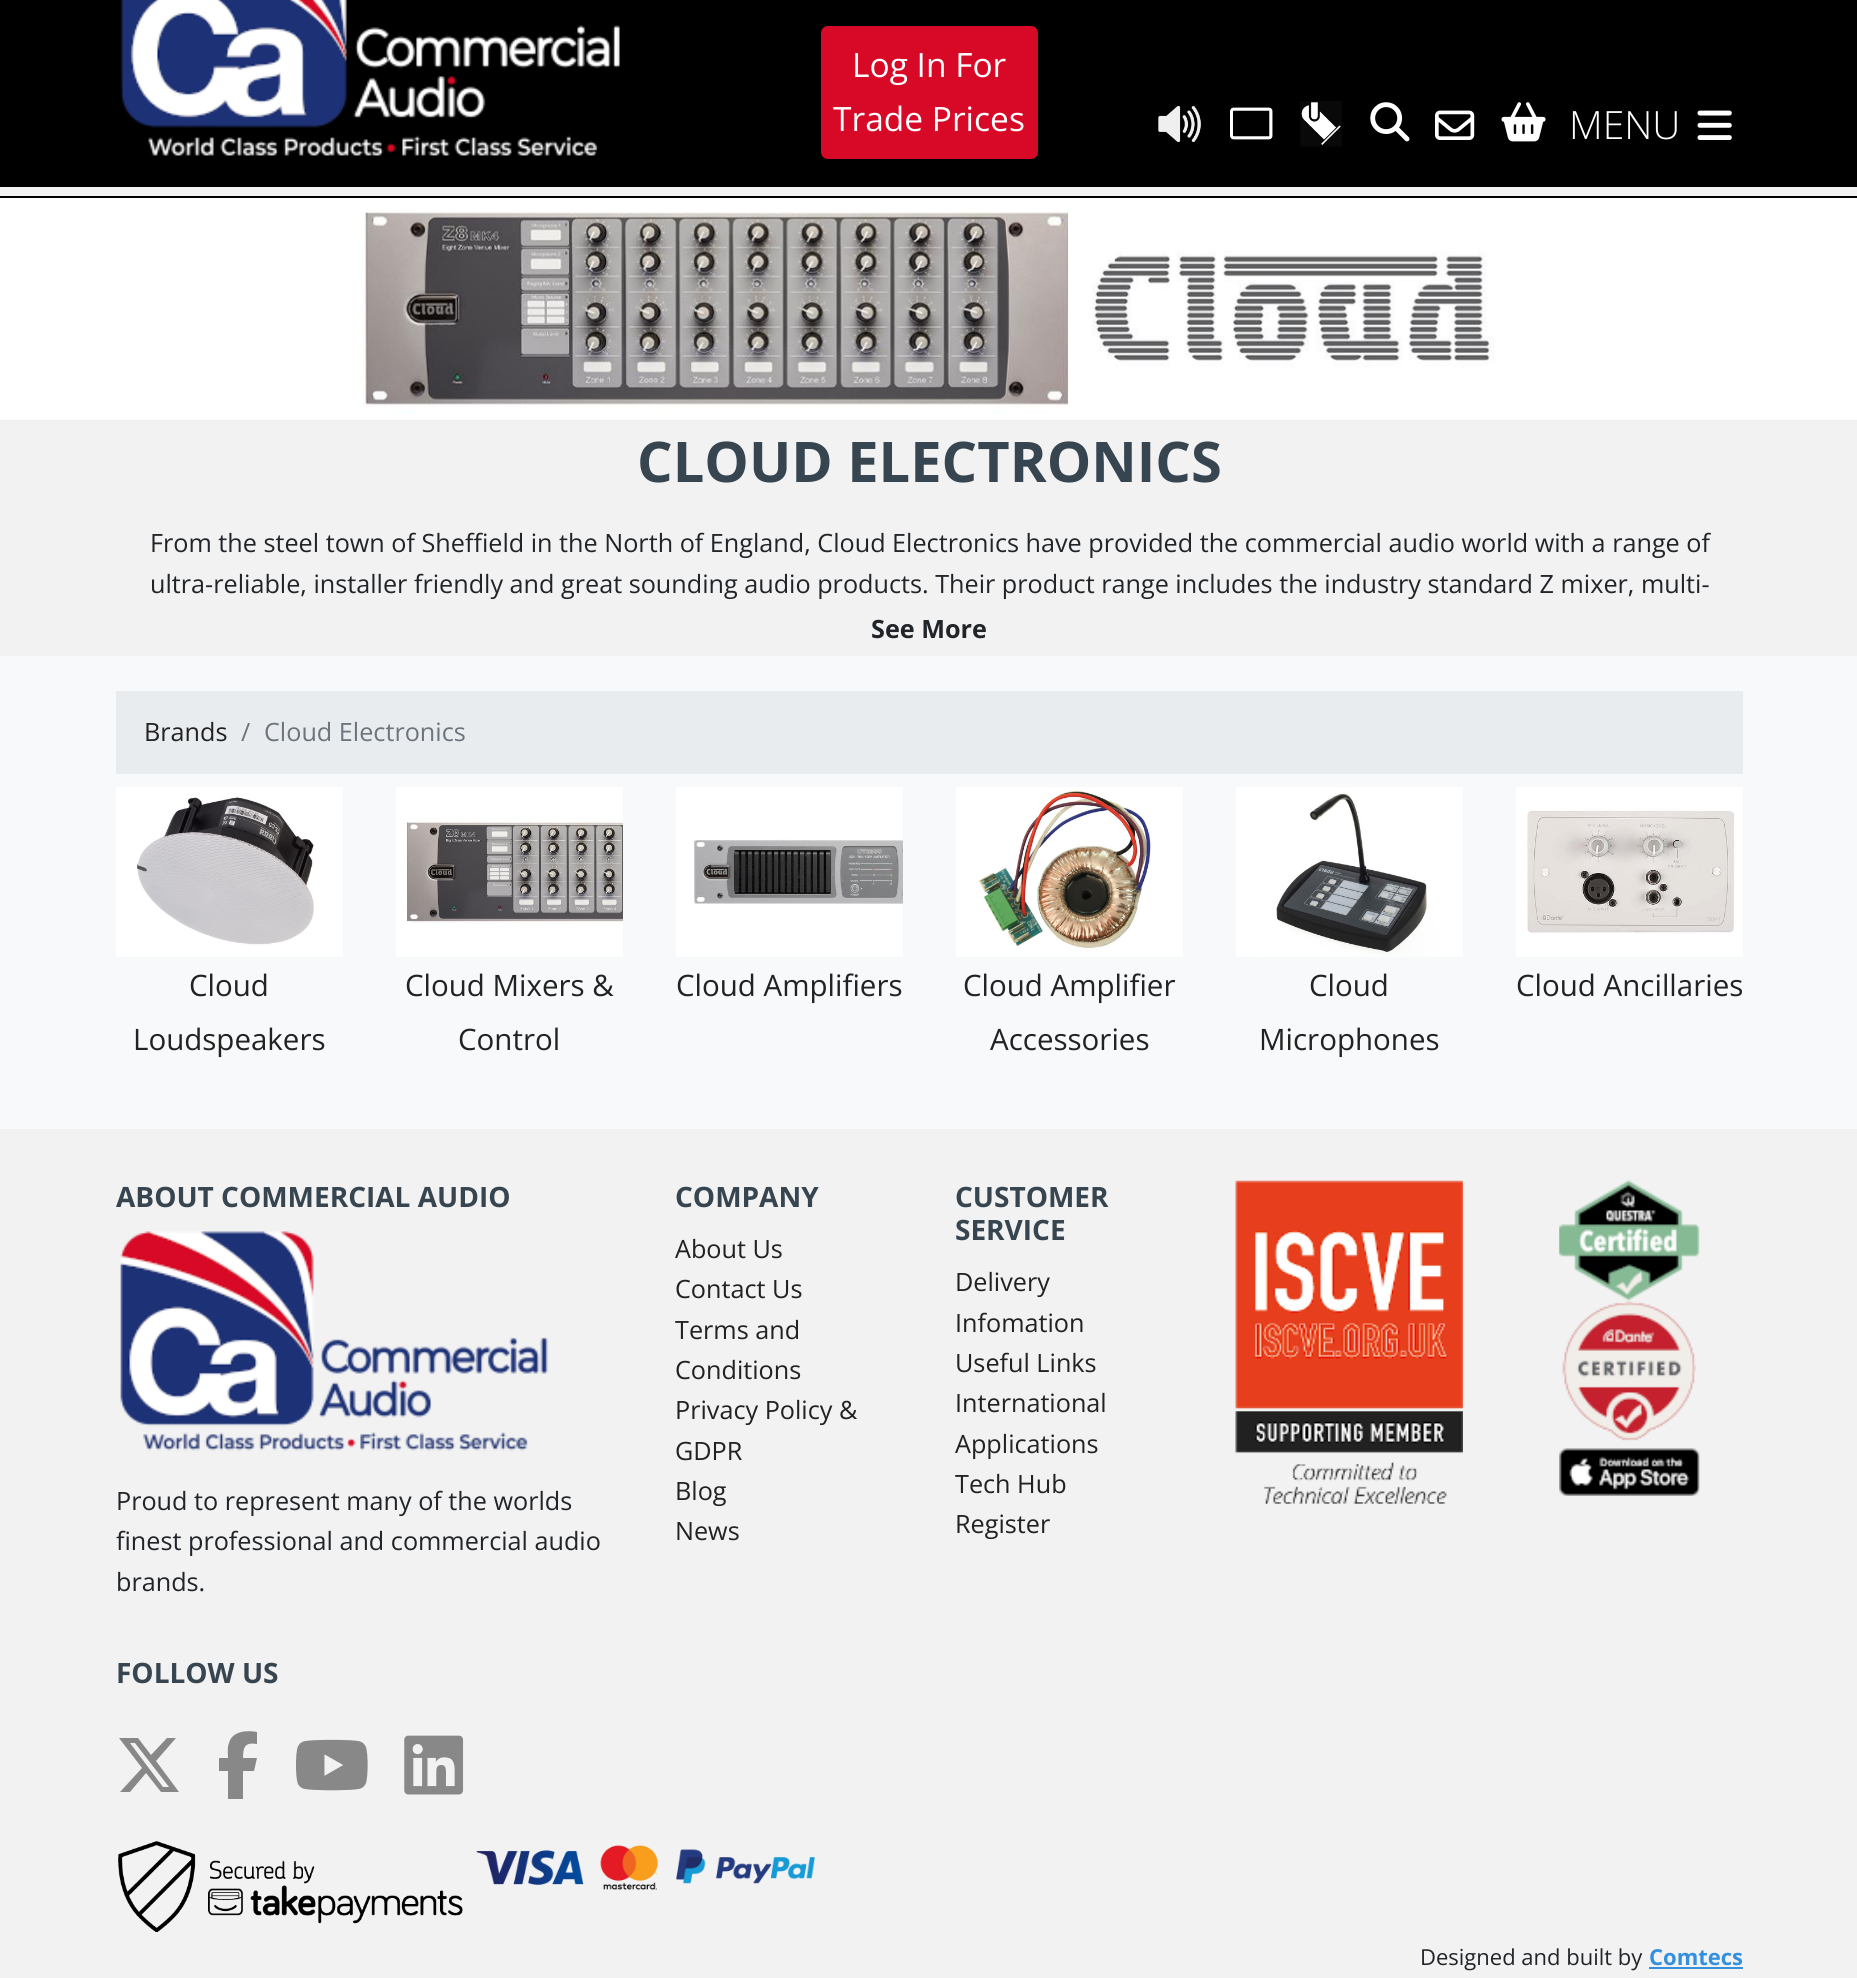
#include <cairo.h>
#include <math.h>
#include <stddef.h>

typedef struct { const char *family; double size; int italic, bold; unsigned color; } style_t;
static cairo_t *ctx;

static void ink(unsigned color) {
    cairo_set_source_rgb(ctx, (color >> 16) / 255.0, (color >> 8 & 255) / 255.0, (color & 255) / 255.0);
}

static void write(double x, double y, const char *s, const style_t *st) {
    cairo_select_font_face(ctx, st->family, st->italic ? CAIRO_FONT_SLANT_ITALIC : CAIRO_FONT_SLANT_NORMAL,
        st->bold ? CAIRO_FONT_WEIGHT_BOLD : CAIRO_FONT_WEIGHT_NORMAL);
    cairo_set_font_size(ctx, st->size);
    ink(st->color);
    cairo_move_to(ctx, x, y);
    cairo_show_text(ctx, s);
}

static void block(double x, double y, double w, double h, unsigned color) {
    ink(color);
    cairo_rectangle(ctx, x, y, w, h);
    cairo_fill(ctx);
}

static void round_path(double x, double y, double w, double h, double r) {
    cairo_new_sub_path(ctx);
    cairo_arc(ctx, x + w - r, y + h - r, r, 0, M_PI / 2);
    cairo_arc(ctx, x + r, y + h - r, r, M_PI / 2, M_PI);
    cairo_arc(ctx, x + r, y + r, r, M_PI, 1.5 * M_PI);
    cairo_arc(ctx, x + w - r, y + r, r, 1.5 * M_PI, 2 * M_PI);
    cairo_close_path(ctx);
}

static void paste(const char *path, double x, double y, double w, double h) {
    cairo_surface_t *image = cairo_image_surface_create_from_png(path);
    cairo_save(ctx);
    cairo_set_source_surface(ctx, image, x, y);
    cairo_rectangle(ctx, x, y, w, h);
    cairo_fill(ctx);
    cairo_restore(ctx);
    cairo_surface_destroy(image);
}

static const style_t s1 = {"Open Sans", 33.5, 0, 0, 0xffffff};
static const style_t s2 = {"Open Sans Light", 39, 0, 0, 0xffffff};
static const style_t s3 = {"Open Sans", 56, 0, 1, 0x36454f};
static const style_t s4 = {"Open Sans", 25.2, 0, 0, 0x212529};
static const style_t s5 = {"Open Sans", 25.2, 0, 1, 0x212529};
static const style_t s6 = {"Open Sans", 25.2, 0, 0, 0x222222};
static const style_t s7 = {"Open Sans", 25.2, 0, 0, 0x6c757d};
static const style_t s8 = {"Open Sans", 29.5, 0, 0, 0x222222};
static const style_t s9 = {"Open Sans", 28, 0, 1, 0x36454f};
static const style_t s10 = {"Open Sans", 22, 0, 0, 0x212529};
static const style_t s11 = {"Open Sans", 22, 0, 1, 0x3490dc};

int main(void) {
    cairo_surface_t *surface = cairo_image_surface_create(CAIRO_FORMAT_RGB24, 1857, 1978);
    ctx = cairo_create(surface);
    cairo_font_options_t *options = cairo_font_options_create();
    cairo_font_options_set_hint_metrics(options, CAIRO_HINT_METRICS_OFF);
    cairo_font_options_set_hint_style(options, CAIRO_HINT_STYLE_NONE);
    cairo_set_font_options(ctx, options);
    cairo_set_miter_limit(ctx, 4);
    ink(0xf2f2f2);
    cairo_paint(ctx);
    block(0, 0, 1857, 187, 0x000000);
    paste("pic1.png", 120, 0, 500, 156);
    ink(0xd70926);
    round_path(822, 27, 215, 131, 6);
    cairo_fill_preserve(ctx);
    cairo_stroke(ctx);
    write(852, 77, "Log In For", &s1);
    write(833, 131, "Trade Prices", &s1);
    paste("pic2.png", 1158, 106, 43, 36);
    paste("pic3.png", 1230, 107, 43, 33);
    paste("pic4.png", 1300, 101, 42, 46);
    paste("pic5.png", 1370, 102, 40, 40);
    paste("pic6.png", 1435, 110, 40, 30);
    paste("pic7.png", 1501, 102, 45, 40);
    write(1569, 139, "MENU", &s2);
    paste("pic8.png", 1697, 110, 35, 30);
    block(0, 196, 1857, 2, 0x000000);
    paste("pic9.png", 0, 198, 1857, 222);
    write(637, 482, "CLOUD ELECTRONICS", &s3);
    write(150, 552, "From the steel town of Sheffield in the North of England, Cloud Electronics have provided the commercial audio world with a range of", &s4);
    write(150, 593, "ultra-reliable, installer friendly and great sounding audio products. Their product range includes the industry standard Z mixer, multi-", &s4);
    write(871, 638, "See More", &s5);
    block(0, 656, 1857, 473, 0xf8f9fa);
    block(116, 691, 1627, 83, 0xe9ecef);
    write(144, 741, "Brands", &s6);
    write(241, 741, "/", &s7);
    write(264, 741, "Cloud Electronics", &s7);
    paste("pic10.png", 116, 787, 227, 170);
    write(189, 996, "Cloud", &s8);
    write(133, 1050, "Loudspeakers", &s8);
    paste("pic11.png", 396, 787, 227, 170);
    write(405, 996, "Cloud Mixers &", &s8);
    write(458, 1050, "Control", &s8);
    paste("pic12.png", 676, 787, 227, 170);
    write(676, 996, "Cloud Amplifiers", &s8);
    paste("pic13.png", 956, 787, 227, 170);
    write(963, 996, "Cloud Amplifier", &s8);
    write(990, 1050, "Accessories", &s8);
    paste("pic14.png", 1236, 787, 227, 170);
    write(1309, 996, "Cloud", &s8);
    write(1259, 1050, "Microphones", &s8);
    paste("pic15.png", 1516, 787, 227, 170);
    write(1516, 996, "Cloud Ancillaries", &s8);
    write(116, 1207, "ABOUT COMMERCIAL AUDIO", &s9);
    paste("pic16.png", 120, 1231, 429, 220);
    write(116, 1510, "Proud to represent many of the worlds", &s4);
    write(116, 1550, "finest professional and commercial audio", &s4);
    write(116, 1591, "brands.", &s4);
    write(675, 1207, "COMPANY", &s9);
    write(675, 1258, "About Us", &s6);
    write(675, 1298, "Contact Us", &s6);
    write(675, 1339, "Terms and", &s6);
    write(675, 1379, "Conditions", &s6);
    write(675, 1419, "Privacy Policy &", &s6);
    write(675, 1460, "GDPR", &s6);
    write(675, 1500, "Blog", &s6);
    write(675, 1540, "News", &s6);
    write(955, 1207, "CUSTOMER", &s9);
    write(955, 1240, "SERVICE", &s9);
    write(955, 1291, "Delivery", &s6);
    write(955, 1332, "Infomation", &s6);
    write(955, 1372, "Useful Links", &s6);
    write(955, 1412, "International", &s6);
    write(955, 1453, "Applications", &s6);
    write(955, 1493, "Tech Hub", &s6);
    write(955, 1533, "Register", &s6);
    paste("pic17.png", 1235, 1180, 228, 324);
    paste("pic18.png", 1559, 1180, 141, 121);
    paste("pic19.png", 1562, 1301, 134, 140);
    paste("pic20.png", 1559, 1448, 141, 48);
    write(116, 1683, "FOLLOW US", &s9);
    ink(0x888888);
    cairo_new_path(ctx);
    cairo_move_to(ctx, 167, 1738);
    cairo_line_to(ctx, 176, 1738);
    cairo_line_to(ctx, 167, 1738);
    cairo_line_to(ctx, 176, 1738);
    cairo_line_to(ctx, 156, 1761);
    cairo_line_to(ctx, 179, 1792);
    cairo_line_to(ctx, 161, 1792);
    cairo_line_to(ctx, 146, 1773);
    cairo_line_to(ctx, 130, 1792);
    cairo_line_to(ctx, 120, 1792);
    cairo_line_to(ctx, 142, 1768);
    cairo_line_to(ctx, 119, 1738);
    cairo_line_to(ctx, 138, 1738);
    cairo_line_to(ctx, 151, 1755);
    cairo_close_path(ctx);
    cairo_move_to(ctx, 163, 1787);
    cairo_line_to(ctx, 169, 1787);
    cairo_line_to(ctx, 163, 1787);
    cairo_line_to(ctx, 169, 1787);
    cairo_line_to(ctx, 135, 1743);
    cairo_line_to(ctx, 130, 1743);
    cairo_close_path(ctx);
    cairo_fill(ctx);
    cairo_new_path(ctx);
    cairo_move_to(ctx, 228, 1771);
    cairo_line_to(ctx, 228, 1799);
    cairo_line_to(ctx, 228, 1771);
    cairo_line_to(ctx, 228, 1799);
    cairo_line_to(ctx, 243, 1799);
    cairo_line_to(ctx, 243, 1771);
    cairo_line_to(ctx, 254, 1771);
    cairo_line_to(ctx, 257, 1758);
    cairo_line_to(ctx, 243, 1758);
    cairo_curve_to(ctx, 243, 1747, 245, 1742, 257, 1744);
    cairo_line_to(ctx, 257, 1732);
    cairo_curve_to(ctx, 247, 1730, 232, 1731, 229, 1743);
    cairo_curve_to(ctx, 227, 1748, 228, 1753, 228, 1758);
    cairo_line_to(ctx, 219, 1758);
    cairo_line_to(ctx, 219, 1771);
    cairo_close_path(ctx);
    cairo_fill(ctx);
    paste("pic21.png", 296, 1739, 72, 52);
    paste("pic22.png", 404, 1735, 60, 60);
    paste("pic23.png", 118, 1841, 345, 91);
    paste("pic24.png", 476, 1845, 339, 45);
    write(1420, 1965, "Designed and built by", &s10);
    write(1649, 1965, "Comtecs", &s11);
    block(1649, 1967, 94, 2, 0x3490dc);
    cairo_surface_write_to_png(surface, "screenshot.png");
    cairo_font_options_destroy(options);
    cairo_destroy(ctx);
    cairo_surface_destroy(surface);
    return 0;
}
